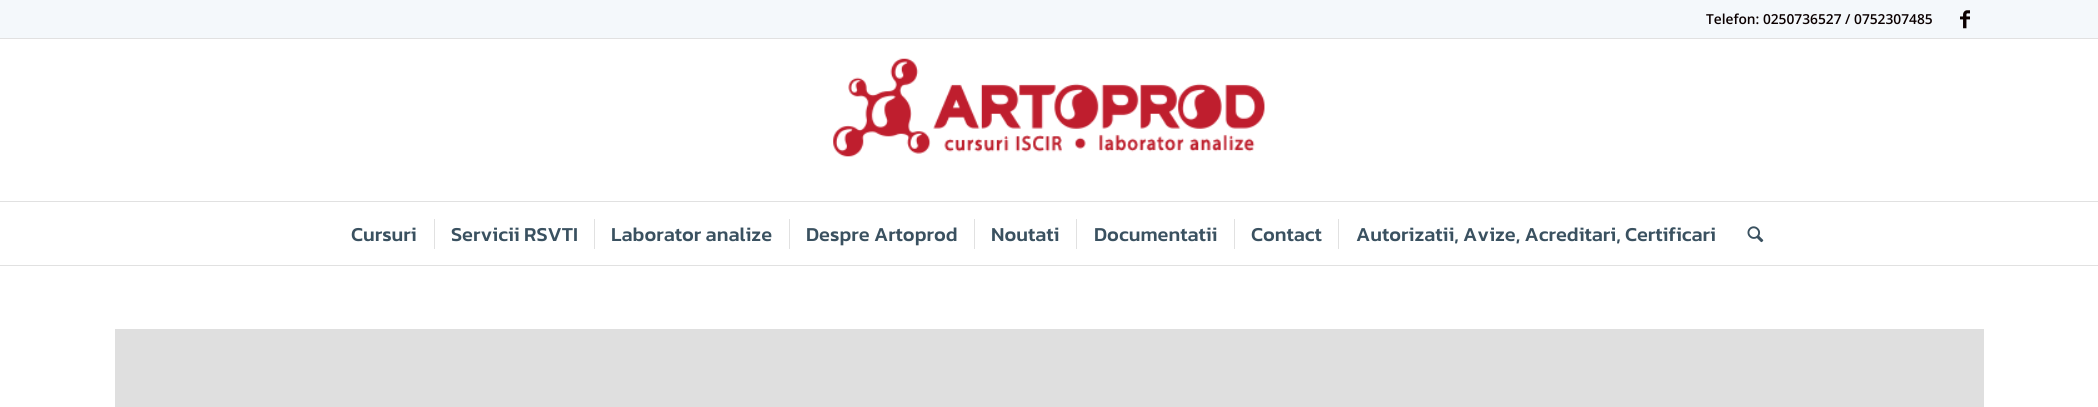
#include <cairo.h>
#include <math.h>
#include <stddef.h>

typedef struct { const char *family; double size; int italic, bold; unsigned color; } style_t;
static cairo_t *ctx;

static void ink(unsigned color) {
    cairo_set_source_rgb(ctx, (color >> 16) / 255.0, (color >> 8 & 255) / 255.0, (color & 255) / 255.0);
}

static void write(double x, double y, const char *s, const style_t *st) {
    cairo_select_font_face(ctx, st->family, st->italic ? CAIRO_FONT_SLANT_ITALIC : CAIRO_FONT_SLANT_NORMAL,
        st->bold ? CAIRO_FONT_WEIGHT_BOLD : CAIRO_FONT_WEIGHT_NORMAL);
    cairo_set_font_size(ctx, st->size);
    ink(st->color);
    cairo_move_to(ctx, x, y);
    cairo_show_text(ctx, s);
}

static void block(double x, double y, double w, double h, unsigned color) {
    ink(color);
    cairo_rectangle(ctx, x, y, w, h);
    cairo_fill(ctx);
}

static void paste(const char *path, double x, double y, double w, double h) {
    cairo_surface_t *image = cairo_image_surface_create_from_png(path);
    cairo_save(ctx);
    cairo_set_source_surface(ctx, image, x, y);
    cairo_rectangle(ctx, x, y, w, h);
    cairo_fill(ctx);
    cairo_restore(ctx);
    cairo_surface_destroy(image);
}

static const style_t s1 = {"Open Sans SemiBold", 13.75, 0, 0, 0x0b0000};
static const style_t s2 = {"Kanit Medium", 20, 0, 0, 0x3a5160};

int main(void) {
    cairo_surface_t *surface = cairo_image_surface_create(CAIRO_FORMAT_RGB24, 2098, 407);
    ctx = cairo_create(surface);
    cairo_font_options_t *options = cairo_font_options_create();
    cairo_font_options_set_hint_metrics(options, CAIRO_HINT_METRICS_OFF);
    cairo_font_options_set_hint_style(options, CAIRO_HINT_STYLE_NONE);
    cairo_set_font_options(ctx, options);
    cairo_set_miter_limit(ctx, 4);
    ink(0xffffff);
    cairo_paint(ctx);
    block(0, 0, 2098, 38, 0xf4f8fb);
    block(0, 38, 2098, 1, 0xe1e1e1);
    write(1706, 24, "Telefon: 0250736527 / 0752307485", &s1);
    paste("pic1.png", 1960, 10, 10, 19);
    block(0, 265, 2098, 1, 0xe1e1e1);
    paste("pic2.png", 833, 58, 432, 99);
    block(0, 201, 2098, 1, 0xe1e1e1);
    write(351, 241, "Cursuri", &s2);
    write(451, 241, "Servicii RSVTI", &s2);
    block(434, 219, 1, 30, 0xe1e1e1);
    write(611, 241, "Laborator analize", &s2);
    block(594, 219, 1, 30, 0xe1e1e1);
    write(806, 241, "Despre Artoprod", &s2);
    block(789, 219, 1, 30, 0xe1e1e1);
    write(991, 241, "Noutati", &s2);
    block(974, 219, 1, 30, 0xe1e1e1);
    write(1094, 241, "Documentatii", &s2);
    block(1076, 219, 1, 30, 0xe1e1e1);
    write(1251, 241, "Contact", &s2);
    block(1234, 219, 1, 30, 0xe1e1e1);
    write(1356, 241, "Autorizatii, Avize, Acreditari, Certificari", &s2);
    block(1338, 219, 1, 30, 0xe1e1e1);
    paste("pic3.png", 1747, 226, 17, 17);
    block(115, 329, 1869, 78, 0xdfdfdf);
    cairo_surface_write_to_png(surface, "screenshot.png");
    cairo_font_options_destroy(options);
    cairo_destroy(ctx);
    cairo_surface_destroy(surface);
    return 0;
}
